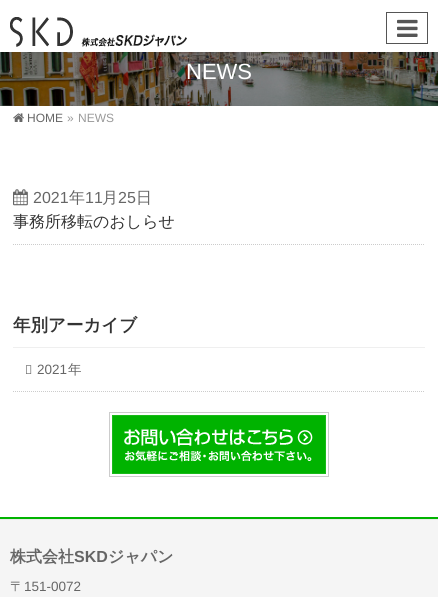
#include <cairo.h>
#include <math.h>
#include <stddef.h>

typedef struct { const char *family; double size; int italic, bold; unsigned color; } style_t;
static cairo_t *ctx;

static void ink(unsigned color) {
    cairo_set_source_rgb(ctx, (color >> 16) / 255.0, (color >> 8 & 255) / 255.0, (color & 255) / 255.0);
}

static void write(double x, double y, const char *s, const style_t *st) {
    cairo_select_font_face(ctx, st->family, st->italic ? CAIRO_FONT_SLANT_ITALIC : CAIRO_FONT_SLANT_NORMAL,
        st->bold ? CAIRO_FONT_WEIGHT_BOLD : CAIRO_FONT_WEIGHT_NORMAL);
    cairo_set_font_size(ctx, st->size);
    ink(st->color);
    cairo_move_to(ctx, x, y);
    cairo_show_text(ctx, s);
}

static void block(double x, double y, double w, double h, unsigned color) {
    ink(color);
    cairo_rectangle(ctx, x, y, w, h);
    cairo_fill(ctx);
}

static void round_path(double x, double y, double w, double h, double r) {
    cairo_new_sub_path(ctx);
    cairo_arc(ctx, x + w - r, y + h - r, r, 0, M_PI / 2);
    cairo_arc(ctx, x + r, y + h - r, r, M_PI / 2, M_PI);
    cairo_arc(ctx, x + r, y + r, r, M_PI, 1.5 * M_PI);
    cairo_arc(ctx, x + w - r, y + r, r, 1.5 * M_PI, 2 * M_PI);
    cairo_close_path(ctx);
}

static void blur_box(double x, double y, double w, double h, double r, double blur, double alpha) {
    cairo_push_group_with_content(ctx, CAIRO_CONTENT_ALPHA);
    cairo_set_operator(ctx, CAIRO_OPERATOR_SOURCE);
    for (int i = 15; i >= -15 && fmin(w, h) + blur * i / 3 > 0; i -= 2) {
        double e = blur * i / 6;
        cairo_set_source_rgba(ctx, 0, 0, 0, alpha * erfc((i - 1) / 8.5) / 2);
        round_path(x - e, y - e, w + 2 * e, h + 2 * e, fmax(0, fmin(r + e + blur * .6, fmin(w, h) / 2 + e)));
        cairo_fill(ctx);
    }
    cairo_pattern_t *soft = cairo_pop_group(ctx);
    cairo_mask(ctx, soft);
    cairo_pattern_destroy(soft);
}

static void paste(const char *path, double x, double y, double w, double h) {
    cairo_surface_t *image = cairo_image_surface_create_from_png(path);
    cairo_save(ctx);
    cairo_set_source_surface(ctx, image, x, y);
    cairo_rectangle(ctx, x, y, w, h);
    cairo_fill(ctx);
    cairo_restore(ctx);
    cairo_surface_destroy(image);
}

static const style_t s1 = {"Liberation Sans", 22, 0, 0, 0xffffff};
static const style_t s2 = {"Liberation Sans", 12, 0, 0, 0x666666};
static const style_t s3 = {"Liberation Sans", 12, 0, 0, 0x999999};
static const style_t s4 = {"Liberation Sans", 16, 0, 0, 0x666666};
static const style_t s5 = {"WenQuanYi Zen Hei Medium", 16, 0, 0, 0x666666};
static const style_t s6 = {"WenQuanYi Zen Hei Medium", 16, 0, 0, 0x333333};
static const style_t s7 = {"WenQuanYi Zen Hei", 17.5, 0, 1, 0x333333};
static const style_t s8 = {"Liberation Sans", 13.5, 0, 0, 0x666666};
static const style_t s9 = {"WenQuanYi Zen Hei Medium", 13.5, 0, 0, 0x666666};
static const style_t s10 = {"WenQuanYi Zen Hei", 16, 0, 1, 0x666666};
static const style_t s11 = {"Liberation Sans", 16, 0, 1, 0x666666};

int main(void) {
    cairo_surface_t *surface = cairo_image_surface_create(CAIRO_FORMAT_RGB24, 438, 597);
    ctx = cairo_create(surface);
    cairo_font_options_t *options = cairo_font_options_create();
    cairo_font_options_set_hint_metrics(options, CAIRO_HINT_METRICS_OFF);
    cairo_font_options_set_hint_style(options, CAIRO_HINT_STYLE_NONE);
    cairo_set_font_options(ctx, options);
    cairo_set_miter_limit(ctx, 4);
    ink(0xffffff);
    cairo_paint(ctx);
    paste("pic3.png", 0, 52, 438, 54);
    ink(0x000000);
    blur_box(0, 1, 438, 52, 0, 1.5, 0.1);
    block(0, 0, 438, 52, 0xffffff);
    paste("pic1.png", 10, 17, 177, 30);
    cairo_rectangle(ctx, 386.5, 12.5, 41, 31);
    ink(0x555555);
    cairo_set_line_width(ctx, 1);
    cairo_stroke(ctx);
    paste("pic2.png", 397, 19, 21, 18);
    write(186, 79, "NEWS", &s1);
    paste("pic4.png", 13, 113, 11, 9);
    write(27, 122, "HOME", &s2);
    write(67, 122, "»", &s3);
    write(78, 122, "NEWS", &s3);
    cairo_new_path(ctx);
    cairo_move_to(ctx, 13, 244.5);
    cairo_line_to(ctx, 425, 244.5);
    ink(0xcccccc);
    cairo_set_dash(ctx, (double[]){1, 1}, 2, 0);
    cairo_stroke(ctx);
    paste("pic5.png", 13, 189, 15, 17);
    write(33, 203, "2021", &s4);
    write(69, 203, "年", &s5);
    write(85, 203, "11", &s4);
    write(102, 203, "月", &s5);
    write(118, 203, "25", &s4);
    write(136, 203, "日", &s5);
    write(13, 227, "事務所移転のおしらせ", &s6);
    block(13, 347, 412, 1, 0xefefef);
    write(13, 331, "年別アーカイブ", &s7);
    cairo_new_path(ctx);
    cairo_move_to(ctx, 13, 391.5);
    cairo_line_to(ctx, 425, 391.5);
    ink(0xcccccc);
    cairo_stroke(ctx);
    paste("pic6.png", 26, 365, 6, 9);
    write(37, 374, "2021", &s8);
    write(68, 374, "年", &s9);
    block(112, 415, 214, 59, 0x00b300);
    paste("pic7.png", 109, 412, 220, 65);
    block(0, 517, 438, 2, 0x00b300);
    block(0, 519, 438, 1, 0xe9e9e9);
    block(0, 520, 438, 77, 0xf5f5f5);
    write(10, 562, "株式会社", &s10);
    write(74, 562, "SKD", &s11);
    write(108, 562, "ジャパン", &s10);
    write(10, 591, "〒", &s9);
    write(24, 591, "151-0072", &s8);
    cairo_surface_write_to_png(surface, "screenshot.png");
    cairo_font_options_destroy(options);
    cairo_destroy(ctx);
    cairo_surface_destroy(surface);
    return 0;
}
